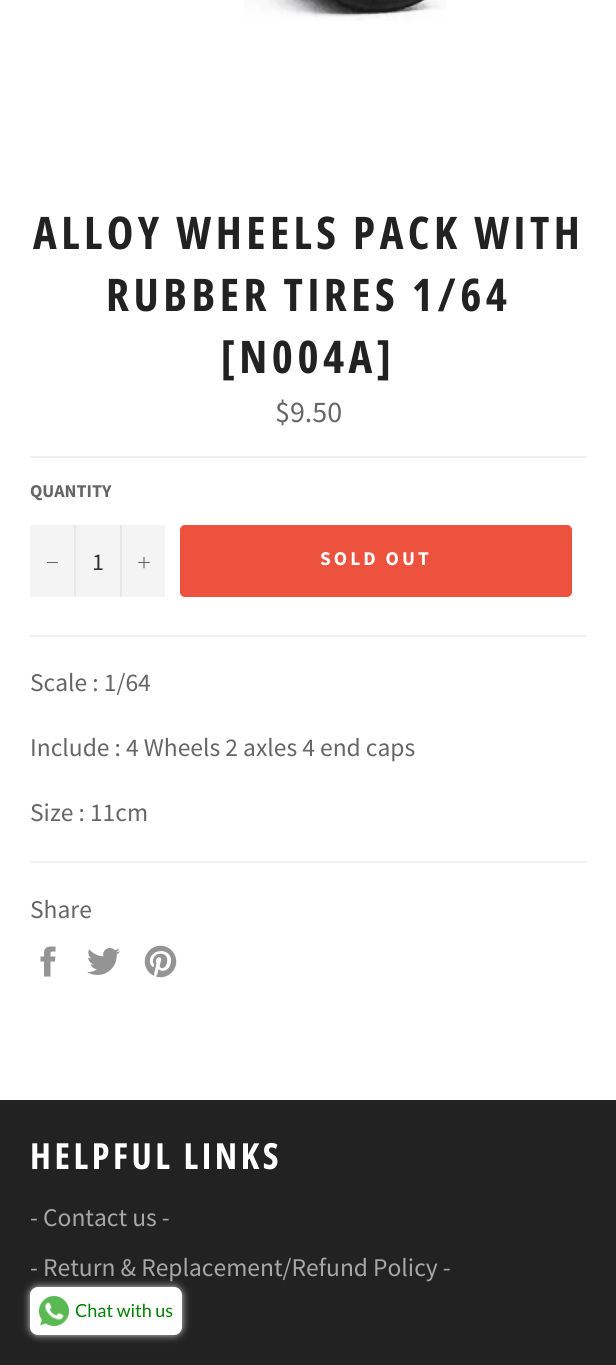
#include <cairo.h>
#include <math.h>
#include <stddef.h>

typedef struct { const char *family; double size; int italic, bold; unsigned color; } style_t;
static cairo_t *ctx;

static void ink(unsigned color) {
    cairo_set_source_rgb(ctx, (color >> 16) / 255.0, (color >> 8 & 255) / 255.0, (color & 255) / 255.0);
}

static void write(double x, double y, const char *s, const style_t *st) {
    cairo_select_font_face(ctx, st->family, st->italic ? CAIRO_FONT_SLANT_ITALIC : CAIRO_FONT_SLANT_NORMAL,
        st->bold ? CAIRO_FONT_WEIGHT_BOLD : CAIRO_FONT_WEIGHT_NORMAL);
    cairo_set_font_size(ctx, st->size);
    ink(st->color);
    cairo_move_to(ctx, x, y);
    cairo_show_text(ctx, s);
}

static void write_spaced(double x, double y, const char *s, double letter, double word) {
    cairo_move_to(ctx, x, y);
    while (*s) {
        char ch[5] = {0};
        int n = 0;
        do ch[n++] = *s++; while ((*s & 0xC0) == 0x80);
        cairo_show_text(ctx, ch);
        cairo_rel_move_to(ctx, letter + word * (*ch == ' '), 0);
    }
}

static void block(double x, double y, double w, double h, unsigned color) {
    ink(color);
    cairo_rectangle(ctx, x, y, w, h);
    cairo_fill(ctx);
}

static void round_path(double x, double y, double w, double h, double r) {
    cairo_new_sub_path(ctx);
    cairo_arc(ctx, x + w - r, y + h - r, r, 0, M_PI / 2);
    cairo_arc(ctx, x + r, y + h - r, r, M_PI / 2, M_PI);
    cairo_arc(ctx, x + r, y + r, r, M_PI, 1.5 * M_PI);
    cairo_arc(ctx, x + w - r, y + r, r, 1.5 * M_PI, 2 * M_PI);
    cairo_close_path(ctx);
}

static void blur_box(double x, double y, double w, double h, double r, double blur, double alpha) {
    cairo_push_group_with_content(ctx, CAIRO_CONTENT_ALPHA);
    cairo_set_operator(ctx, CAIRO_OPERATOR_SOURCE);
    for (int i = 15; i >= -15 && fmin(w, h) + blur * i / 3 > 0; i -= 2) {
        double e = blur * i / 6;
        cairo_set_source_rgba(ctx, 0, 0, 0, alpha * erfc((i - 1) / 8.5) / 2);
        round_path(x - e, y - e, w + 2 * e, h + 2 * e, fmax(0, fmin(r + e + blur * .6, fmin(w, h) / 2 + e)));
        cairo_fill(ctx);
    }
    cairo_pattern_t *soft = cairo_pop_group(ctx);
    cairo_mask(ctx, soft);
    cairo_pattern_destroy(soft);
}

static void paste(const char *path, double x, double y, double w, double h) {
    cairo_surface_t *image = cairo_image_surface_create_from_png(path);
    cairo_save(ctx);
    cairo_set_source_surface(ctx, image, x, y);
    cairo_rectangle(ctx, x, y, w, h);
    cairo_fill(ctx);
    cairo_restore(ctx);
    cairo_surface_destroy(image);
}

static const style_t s1 = {"Source Sans Pro", 30, 0, 0, 0x666666};
static const style_t s2 = {"Source Sans Pro", 18, 0, 1, 0x666666};
static const style_t s3 = {"Source Sans Pro", 24, 0, 0, 0x333333};
static const style_t s4 = {"Source Sans Pro", 25.5, 0, 0, 0x666666};
static const style_t s5 = {"Source Sans Pro", 25.5, 0, 0, 0xa7a7a7};
static const style_t s6 = {"Lato", 18, 0, 0, 0x008000};

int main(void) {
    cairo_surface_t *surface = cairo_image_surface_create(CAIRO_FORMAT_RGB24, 616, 1365);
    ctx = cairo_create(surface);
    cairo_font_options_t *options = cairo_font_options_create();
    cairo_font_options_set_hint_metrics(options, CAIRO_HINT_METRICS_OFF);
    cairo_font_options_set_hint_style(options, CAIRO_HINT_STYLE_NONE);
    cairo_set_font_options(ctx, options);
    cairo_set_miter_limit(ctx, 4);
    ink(0xffffff);
    cairo_paint(ctx);
    paste("pic1.png", 244, 0, 202, 21);
    cairo_select_font_face(ctx, "Open Sans Condensed", CAIRO_FONT_SLANT_NORMAL, CAIRO_FONT_WEIGHT_BOLD);
    cairo_set_font_size(ctx, 45);
    ink(0x222222);
    write_spaced(33, 249, "ALLOY WHEELS PACK WITH", 4.5, 0);
    write_spaced(106, 311, "RUBBER TIRES 1/64", 4.5, 0);
    write_spaced(221, 373, "[N004A]", 4.5, 0);
    write(275, 422, "$9.50", &s1);
    block(30, 456, 557, 2, 0xf0f0f0);
    write(30, 497, "QUANTITY", &s2);
    block(30, 525, 135, 72, 0xf4f4f4);
    block(74, 525, 2, 72, 0xe7e7e7);
    block(47, 562, 11, 1, 0x666666);
    write(92, 570, "1", &s3);
    block(120, 525, 2, 72, 0xe7e7e7);
    paste("pic2.png", 138, 557, 12, 12);
    ink(0xec523e);
    round_path(180, 525, 392, 72, 5);
    cairo_fill(ctx);
    cairo_select_font_face(ctx, "Source Sans Pro", CAIRO_FONT_SLANT_NORMAL, CAIRO_FONT_WEIGHT_BOLD);
    cairo_set_font_size(ctx, 19.5);
    ink(0xffffff);
    write_spaced(320, 565, "SOLD OUT", 3, 0);
    block(30, 635, 557, 2, 0xf0f0f0);
    write(30, 691, "Scale : 1/64", &s4);
    write(30, 756, "Include : 4 Wheels 2 axles 4 end caps", &s4);
    write(30, 821, "Size : 11cm", &s4);
    block(30, 861, 557, 2, 0xf0f0f0);
    write(30, 918, "Share", &s4);
    paste("pic3.png", 40, 946, 16, 31);
    paste("pic4.png", 87, 948, 33, 27);
    paste("pic5.png", 144, 945, 33, 33);
    block(0, 1100, 616, 265, 0x222222);
    cairo_select_font_face(ctx, "Open Sans Condensed", CAIRO_FONT_SLANT_NORMAL, CAIRO_FONT_WEIGHT_BOLD);
    cairo_set_font_size(ctx, 36);
    ink(0xffffff);
    write_spaced(30, 1169, "HELPFUL LINKS", 3.6, 0);
    write(30, 1226, "- Contact us -", &s5);
    write(30, 1276, "- Return & Replacement/Refund Policy -", &s5);
    ink(0xd3d3d3);
    blur_box(30, 1287, 152, 48, 8, 4, 1);
    ink(0xffffff);
    round_path(30, 1287, 152, 48, 8);
    cairo_fill(ctx);
    paste("pic6.png", 39, 1296, 30, 30);
    write(75, 1317, "Chat with us", &s6);
    cairo_surface_write_to_png(surface, "screenshot.png");
    cairo_font_options_destroy(options);
    cairo_destroy(ctx);
    cairo_surface_destroy(surface);
    return 0;
}
